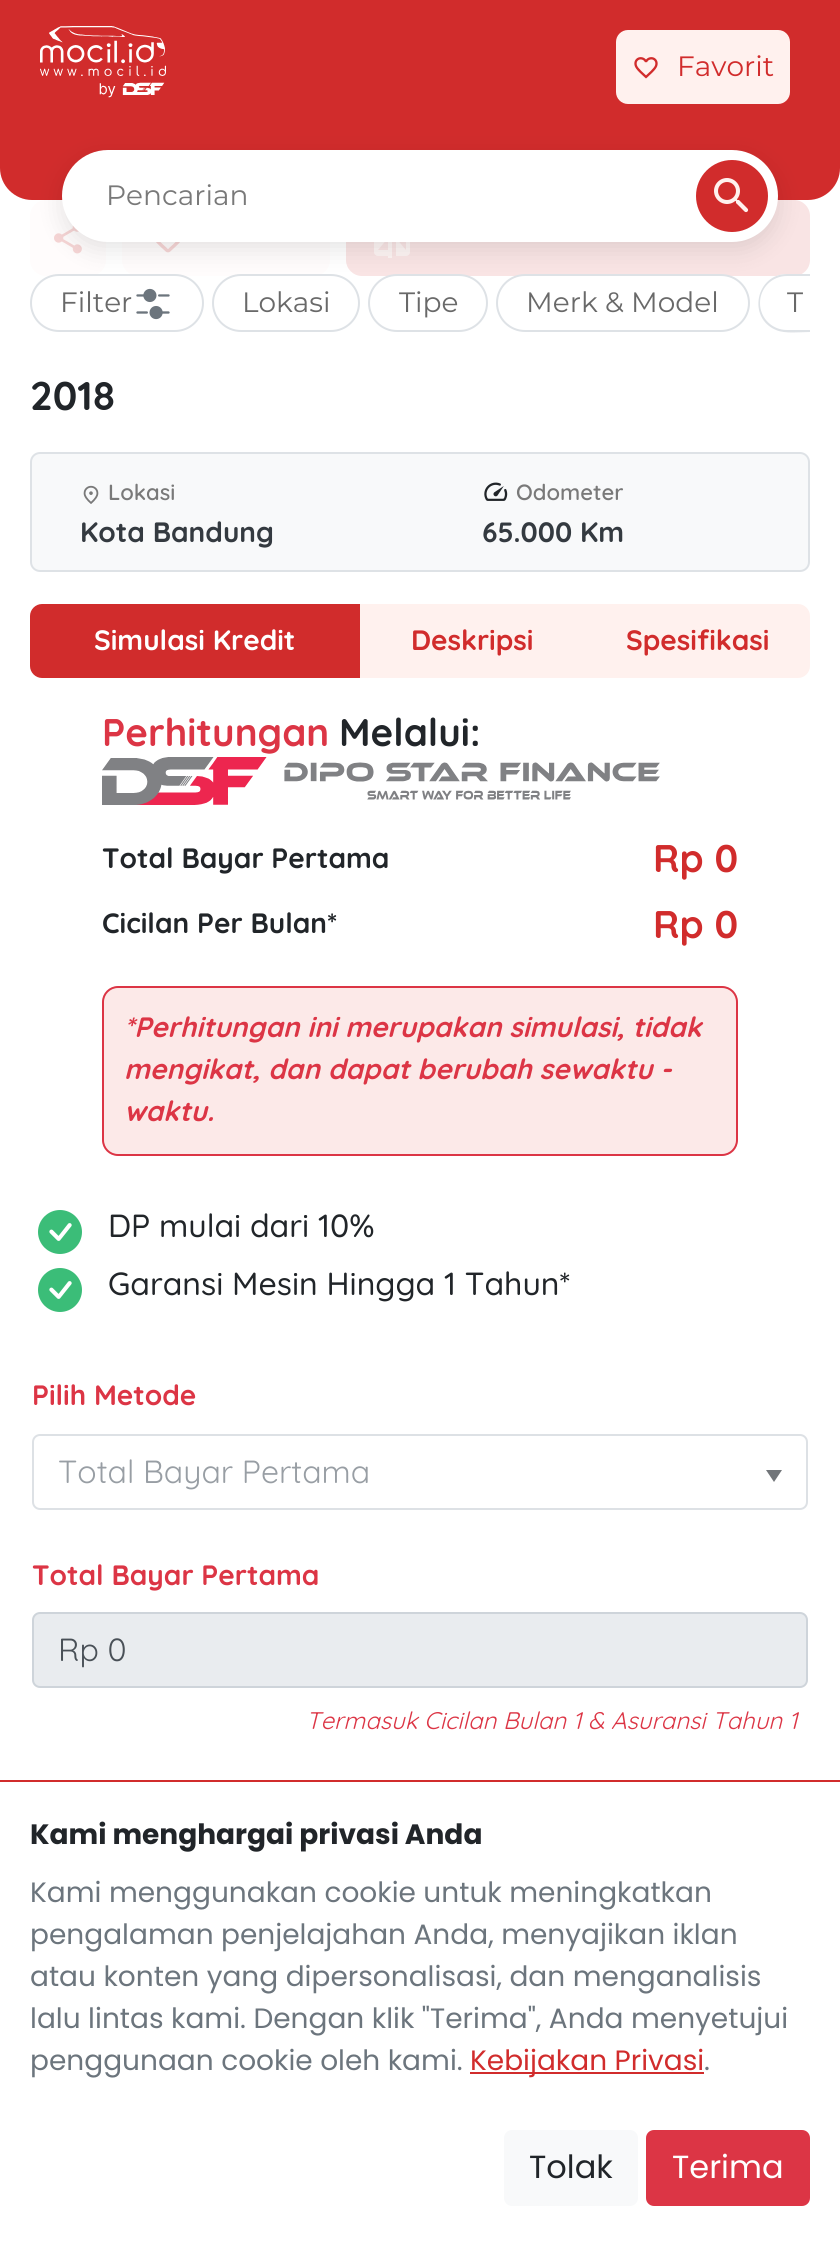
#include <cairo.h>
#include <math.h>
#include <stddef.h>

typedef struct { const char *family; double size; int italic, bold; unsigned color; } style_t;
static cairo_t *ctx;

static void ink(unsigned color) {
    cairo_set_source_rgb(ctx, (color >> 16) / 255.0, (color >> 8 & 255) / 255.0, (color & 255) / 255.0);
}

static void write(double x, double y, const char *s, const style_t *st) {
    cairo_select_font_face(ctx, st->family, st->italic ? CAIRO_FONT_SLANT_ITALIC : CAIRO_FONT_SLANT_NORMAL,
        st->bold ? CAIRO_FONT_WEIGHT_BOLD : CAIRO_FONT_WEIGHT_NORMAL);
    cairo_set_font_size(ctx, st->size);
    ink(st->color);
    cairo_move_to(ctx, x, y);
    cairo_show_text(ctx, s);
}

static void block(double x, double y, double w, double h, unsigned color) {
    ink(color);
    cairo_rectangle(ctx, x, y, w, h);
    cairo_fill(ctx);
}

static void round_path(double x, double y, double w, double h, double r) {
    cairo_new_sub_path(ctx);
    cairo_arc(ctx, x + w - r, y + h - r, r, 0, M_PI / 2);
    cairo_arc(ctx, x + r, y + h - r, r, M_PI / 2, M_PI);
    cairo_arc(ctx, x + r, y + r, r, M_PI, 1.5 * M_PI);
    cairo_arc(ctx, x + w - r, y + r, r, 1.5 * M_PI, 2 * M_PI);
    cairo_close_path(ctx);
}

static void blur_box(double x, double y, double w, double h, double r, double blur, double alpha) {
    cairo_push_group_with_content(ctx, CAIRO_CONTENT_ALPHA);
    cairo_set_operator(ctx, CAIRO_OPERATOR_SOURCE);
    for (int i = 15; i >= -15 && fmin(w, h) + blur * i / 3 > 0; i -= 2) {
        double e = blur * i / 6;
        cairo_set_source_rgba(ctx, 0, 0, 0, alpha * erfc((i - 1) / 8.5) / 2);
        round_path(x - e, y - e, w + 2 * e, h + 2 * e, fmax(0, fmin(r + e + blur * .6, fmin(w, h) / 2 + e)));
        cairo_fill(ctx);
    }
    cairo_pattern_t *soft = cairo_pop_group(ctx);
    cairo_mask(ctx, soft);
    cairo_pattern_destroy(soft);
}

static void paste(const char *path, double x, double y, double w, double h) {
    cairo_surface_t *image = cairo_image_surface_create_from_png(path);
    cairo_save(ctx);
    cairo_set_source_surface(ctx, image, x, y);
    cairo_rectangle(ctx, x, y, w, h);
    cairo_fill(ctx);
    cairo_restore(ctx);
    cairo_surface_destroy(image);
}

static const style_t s1 = {"Montserrat", 28, 0, 0, 0xd12c2c};
static const style_t s2 = {"Montserrat", 28, 0, 0, 0x797979};
static const style_t s3 = {"Montserrat", 28, 0, 0, 0x696969};
static const style_t s4 = {"Quicksand", 40, 0, 1, 0x212529};
static const style_t s5 = {"Quicksand SemiBold", 22, 0, 0, 0x797979};
static const style_t s6 = {"Quicksand", 28, 0, 1, 0x343a40};
static const style_t s7 = {"Quicksand", 28, 0, 1, 0xffffff};
static const style_t s8 = {"Quicksand", 28, 0, 1, 0xd12c2c};
static const style_t s9 = {"Quicksand", 38.5, 0, 1, 0xdc3545};
static const style_t s10 = {"Quicksand", 38.5, 0, 1, 0x212529};
static const style_t s11 = {"Quicksand", 28, 0, 1, 0x212529};
static const style_t s12 = {"Quicksand", 38.5, 0, 1, 0xd12c2c};
static const style_t s13 = {"Quicksand", 28, 1, 1, 0xdc3545};
static const style_t s14 = {"Quicksand Medium", 32, 0, 0, 0x212529};
static const style_t s15 = {"Quicksand", 28, 0, 1, 0xdc3545};
static const style_t s16 = {"Quicksand", 32, 0, 0, 0x989ea4};
static const style_t s17 = {"Quicksand", 32, 0, 0, 0x495057};
static const style_t s18 = {"Quicksand", 24, 1, 0, 0xdc3545};
static const style_t s19 = {"Poppins", 28, 0, 1, 0x212529};
static const style_t s20 = {"Poppins", 28, 0, 0, 0x6c757d};
static const style_t s21 = {"Poppins", 28, 0, 0, 0xd12c2c};
static const style_t s22 = {"Poppins", 32, 0, 0, 0x212529};
static const style_t s23 = {"Poppins", 32, 0, 0, 0xffffff};

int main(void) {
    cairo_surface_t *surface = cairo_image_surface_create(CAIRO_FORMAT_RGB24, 840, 2253);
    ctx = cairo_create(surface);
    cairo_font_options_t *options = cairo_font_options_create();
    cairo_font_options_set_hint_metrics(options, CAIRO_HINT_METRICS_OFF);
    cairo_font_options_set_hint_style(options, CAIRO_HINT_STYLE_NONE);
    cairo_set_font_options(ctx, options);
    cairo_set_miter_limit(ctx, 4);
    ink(0xffffff);
    cairo_paint(ctx);
    ink(0xd12c2c);
    cairo_new_path(ctx);
    cairo_move_to(ctx, 0, 0);
    cairo_line_to(ctx, 840, 0);
    cairo_line_to(ctx, 840, 168);
    cairo_curve_to(ctx, 840, 185.5, 825.5, 200, 808, 200);
    cairo_line_to(ctx, 32, 200);
    cairo_curve_to(ctx, 14.5, 200, 0, 185.5, 0, 168);
    cairo_close_path(ctx);
    cairo_fill(ctx);
    paste("pic1.png", 40, 26, 126, 72);
    ink(0xfff1ee);
    round_path(616, 30, 174, 74, 12);
    cairo_fill(ctx);
    paste("pic2.png", 634, 57, 24, 22);
    write(677, 76, "Favorit", &s1);
    ink(0xfff1ee);
    round_path(30, 200, 76, 76, 16);
    cairo_fill(ctx);
    paste("pic5.png", 54, 225, 28, 29);
    round_path(123, 201, 206, 74, 15);
    cairo_fill_preserve(ctx);
    cairo_stroke(ctx);
    paste("pic6.png", 156, 242, 24, 11);
    ink(0xe17676);
    round_path(346, 200, 464, 76, 16);
    cairo_fill(ctx);
    paste("pic7.png", 374, 242, 36, 16);
    cairo_set_source_rgba(ctx, 1, 1, 1, 0.8);
    cairo_rectangle(ctx, 30, 200, 780, 76);
    cairo_fill(ctx);
    ink(0xffffff);
    round_path(31, 275, 172, 56, 28);
    cairo_fill_preserve(ctx);
    ink(0xdee2e6);
    cairo_stroke(ctx);
    ink(0xffffff);
    round_path(213, 275, 146, 56, 28);
    cairo_fill_preserve(ctx);
    ink(0xdee2e6);
    cairo_stroke(ctx);
    ink(0xffffff);
    round_path(369, 275, 118, 56, 28);
    cairo_fill_preserve(ctx);
    ink(0xdee2e6);
    cairo_stroke(ctx);
    ink(0xffffff);
    round_path(497, 275, 252, 56, 28);
    cairo_fill_preserve(ctx);
    ink(0xdee2e6);
    cairo_stroke(ctx);
    ink(0xffffff);
    cairo_new_path(ctx);
    cairo_move_to(ctx, 787, 274);
    cairo_line_to(ctx, 810, 274);
    cairo_line_to(ctx, 810, 332);
    cairo_line_to(ctx, 787, 332);
    cairo_curve_to(ctx, 771, 332, 758, 319, 758, 303);
    cairo_curve_to(ctx, 758, 287, 771, 274, 787, 274);
    cairo_close_path(ctx);
    cairo_fill(ctx);
    ink(0xdee2e6);
    cairo_new_path(ctx);
    cairo_move_to(ctx, 787, 274);
    cairo_curve_to(ctx, 756, 274, 747, 318, 776, 330);
    cairo_curve_to(ctx, 785, 334, 800, 332, 810, 332);
    cairo_line_to(ctx, 810, 330);
    cairo_line_to(ctx, 787, 330);
    cairo_curve_to(ctx, 772, 330, 760, 318, 760, 303);
    cairo_curve_to(ctx, 760, 288, 772, 276, 787, 276);
    cairo_line_to(ctx, 810, 276);
    cairo_line_to(ctx, 810, 274);
    cairo_close_path(ctx);
    cairo_fill(ctx);
    ink(0x000000);
    blur_box(62, 158, 716, 92, 46, 12, 0.1);
    ink(0xffffff);
    round_path(62, 150, 716, 92, 46);
    cairo_fill(ctx);
    write(106, 205, "Pencarian", &s2);
    ink(0xd12c2c);
    cairo_new_path(ctx);
    cairo_arc(ctx, 732, 196, 36, 0, 2 * M_PI);
    cairo_fill(ctx);
    paste("pic3.png", 714, 178, 35, 35);
    write(60, 312, "Filter", &s3);
    paste("pic4.png", 136, 288, 34, 32);
    write(242, 312, "Lokasi", &s3);
    write(399, 312, "Tipe", &s3);
    write(526, 312, "Merk & Model", &s3);
    write(787, 312, "T", &s3);
    write(30, 410, "2018", &s4);
    ink(0xf8f9fa);
    round_path(31, 453, 778, 118, 9);
    cairo_fill_preserve(ctx);
    ink(0xdee2e6);
    cairo_stroke(ctx);
    paste("pic8.png", 83, 485, 16, 19);
    write(108, 500, "Lokasi", &s5);
    write(80, 542, "Kota Bandung", &s6);
    paste("pic9.png", 484, 482, 24, 19);
    write(516, 500, "Odometer", &s5);
    write(482, 542, "65.000 Km", &s6);
    ink(0xd12c2c);
    cairo_new_path(ctx);
    cairo_move_to(ctx, 42, 604);
    cairo_line_to(ctx, 360, 604);
    cairo_line_to(ctx, 360, 678);
    cairo_line_to(ctx, 42, 678);
    cairo_curve_to(ctx, 35.5, 678, 30, 672.5, 30, 666);
    cairo_line_to(ctx, 30, 616);
    cairo_curve_to(ctx, 30, 609.5, 35.5, 604, 42, 604);
    cairo_close_path(ctx);
    cairo_fill(ctx);
    write(94, 650, "Simulasi Kredit", &s7);
    block(360, 604, 224, 74, 0xfff1ee);
    write(411, 650, "Deskripsi", &s8);
    ink(0xfff1ee);
    cairo_new_path(ctx);
    cairo_move_to(ctx, 584, 604);
    cairo_line_to(ctx, 798, 604);
    cairo_curve_to(ctx, 804.5, 604, 810, 609.5, 810, 616);
    cairo_line_to(ctx, 810, 666);
    cairo_curve_to(ctx, 810, 672.5, 804.5, 678, 798, 678);
    cairo_line_to(ctx, 584, 678);
    cairo_close_path(ctx);
    cairo_fill(ctx);
    write(626, 650, "Spesifikasi", &s8);
    write(102, 746, "Perhitungan", &s9);
    write(339, 746, "Melalui:", &s10);
    paste("pic10.png", 102, 757, 558, 48);
    write(102, 868, "Total Bayar Pertama", &s11);
    write(653, 872, "Rp 0", &s12);
    write(102, 933, "Cicilan Per Bulan*", &s11);
    write(653, 938, "Rp 0", &s12);
    ink(0xfce9e8);
    round_path(103, 987, 634, 168, 15);
    cairo_fill_preserve(ctx);
    ink(0xdc3545);
    cairo_stroke(ctx);
    write(124, 1037, "*Perhitungan ini merupakan simulasi, tidak", &s13);
    write(124, 1079, "mengikat, dan dapat berubah sewaktu -", &s13);
    write(124, 1121, "waktu.", &s13);
    paste("pic11.png", 38, 1210, 44, 44);
    write(108, 1237, "DP mulai dari 10%", &s14);
    paste("pic11.png", 38, 1268, 44, 44);
    write(108, 1295, "Garansi Mesin Hingga 1 Tahun*", &s14);
    write(32, 1405, "Pilih Metode", &s15);
    ink(0x717579);
    cairo_new_path(ctx);
    cairo_move_to(ctx, 774, 1482);
    cairo_line_to(ctx, 766, 1470);
    cairo_line_to(ctx, 782, 1470);
    cairo_close_path(ctx);
    cairo_move_to(ctx, 774, 1494);
    cairo_line_to(ctx, 790, 1494);
    cairo_close_path(ctx);
    cairo_fill(ctx);
    round_path(33, 1435, 774, 74, 7);
    ink(0xdde1e5);
    cairo_stroke(ctx);
    write(58, 1483, "Total Bayar Pertama", &s16);
    write(32, 1585, "Total Bayar Pertama", &s15);
    ink(0xe9ecef);
    round_path(33, 1613, 774, 74, 7);
    cairo_fill_preserve(ctx);
    ink(0xced4da);
    cairo_stroke(ctx);
    write(58, 1661, "Rp 0", &s17);
    write(306, 1729, "Termasuk Cicilan Bulan 1 & Asuransi Tahun 1", &s18);
    block(0, 1780, 840, 2, 0xd12c2c);
    write(30, 1844, "Kami menghargai privasi Anda", &s19);
    write(30, 1902, "Kami menggunakan cookie untuk meningkatkan", &s20);
    write(30, 1944, "pengalaman penjelajahan Anda, menyajikan iklan", &s20);
    write(30, 1986, "atau konten yang dipersonalisasi, dan menganalisis", &s20);
    write(30, 2028, "lalu lintas kami. Dengan klik \"Terima\", Anda menyetujui", &s20);
    write(30, 2070, "penggunaan cookie oleh kami.", &s20);
    block(470, 2072, 234, 2, 0xd12c2c);
    write(470, 2070, "Kebijakan Privasi", &s21);
    write(704, 2070, ".", &s20);
    ink(0xf8f9fa);
    round_path(504, 2130, 134, 76, 8);
    cairo_fill(ctx);
    write(529, 2178, "Tolak", &s22);
    ink(0xdc3545);
    round_path(647, 2131, 162, 74, 7);
    cairo_fill_preserve(ctx);
    cairo_stroke(ctx);
    write(672, 2178, "Terima", &s23);
    cairo_surface_write_to_png(surface, "screenshot.png");
    cairo_font_options_destroy(options);
    cairo_destroy(ctx);
    cairo_surface_destroy(surface);
    return 0;
}
